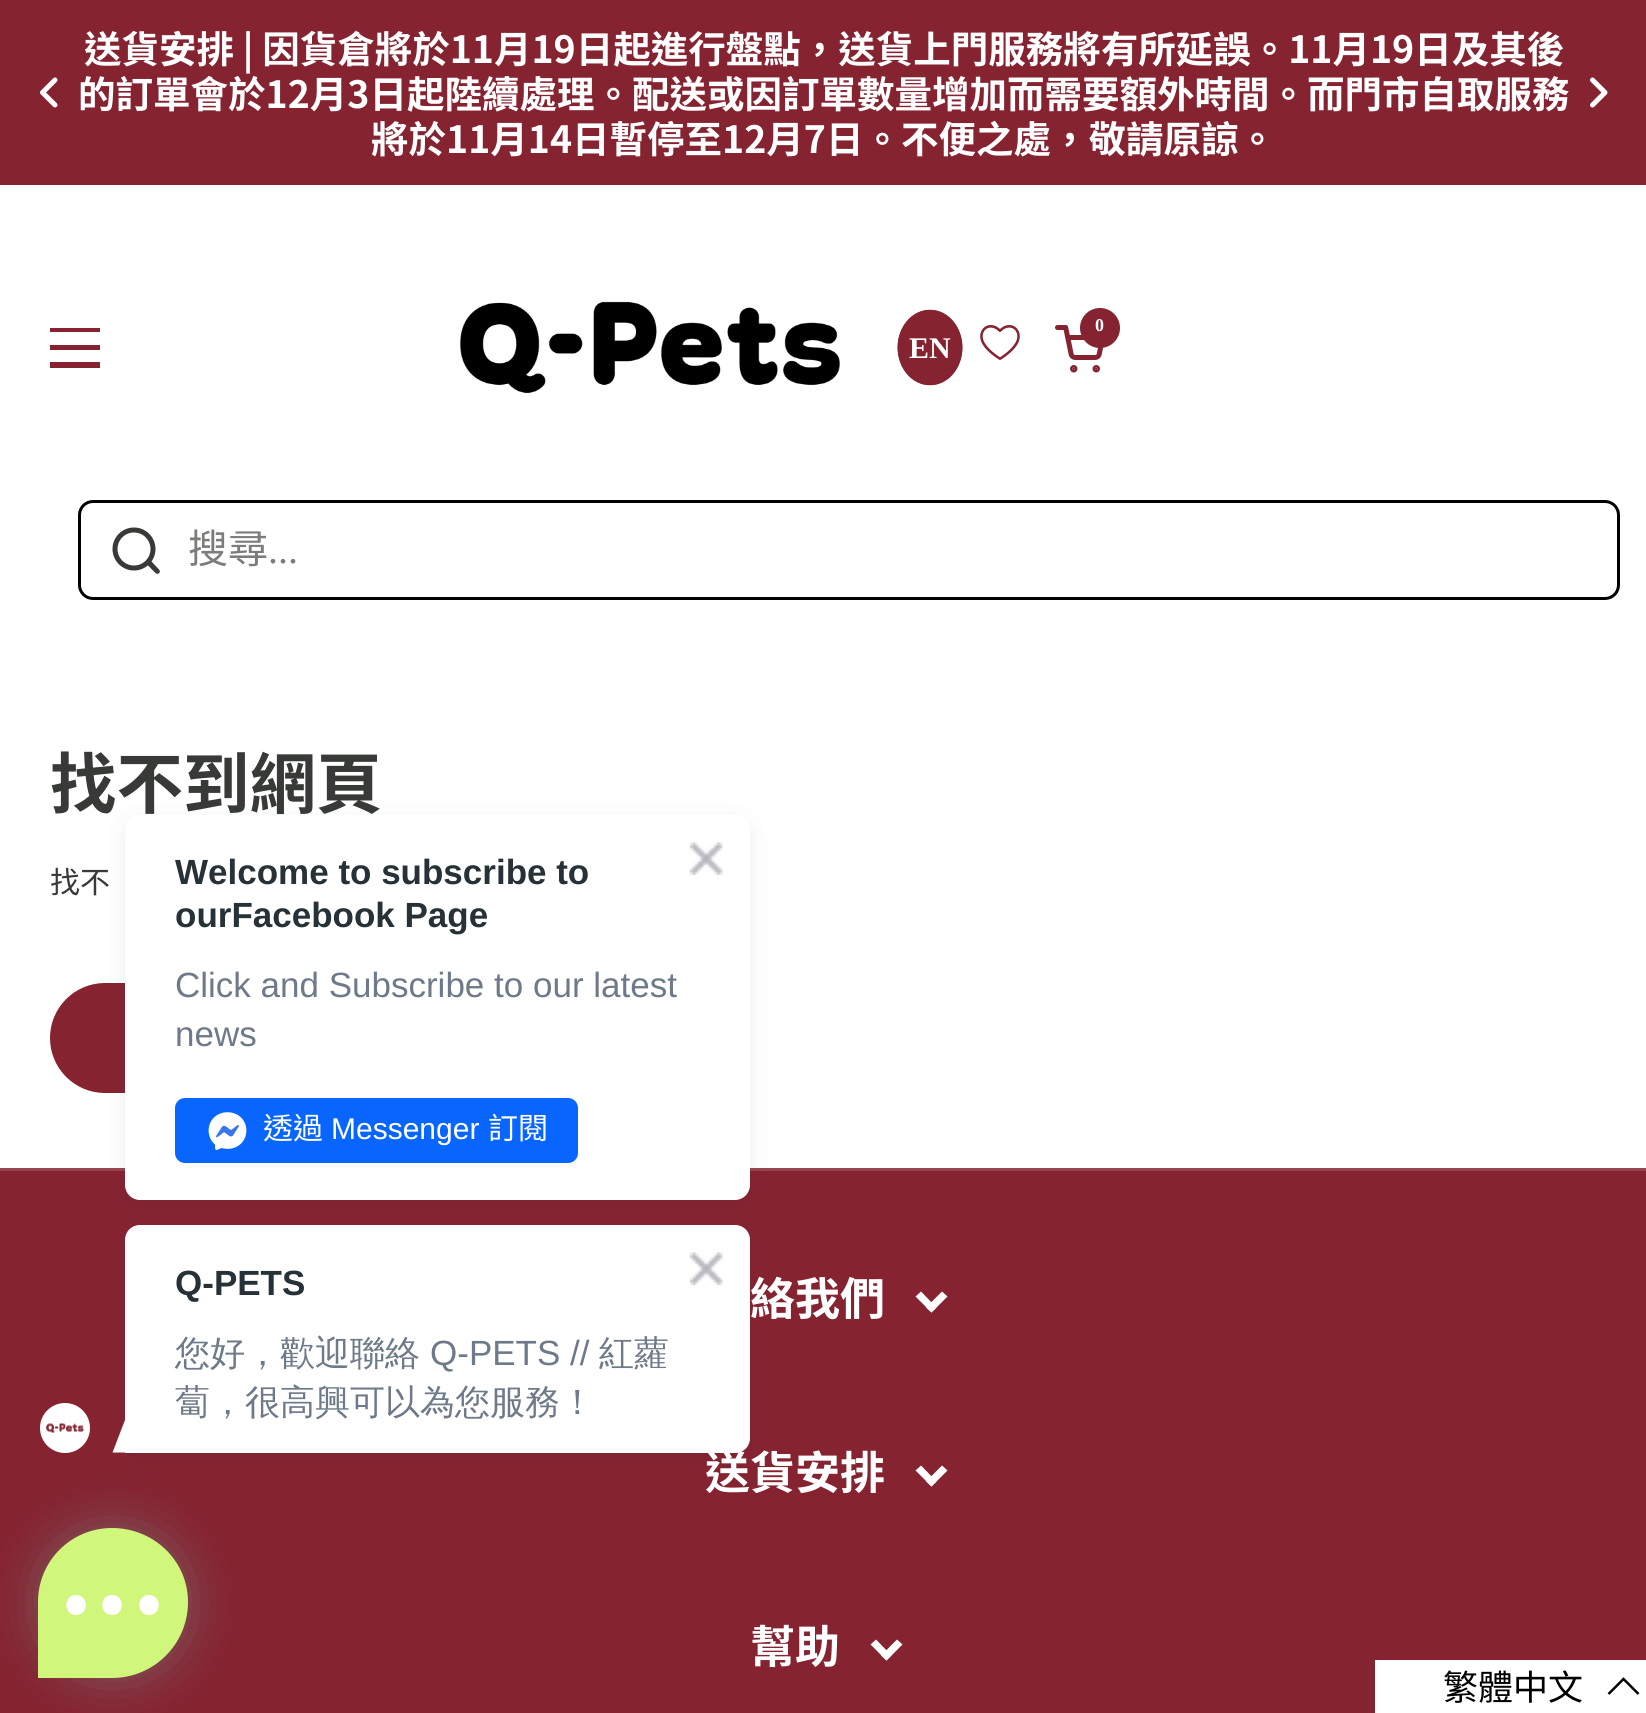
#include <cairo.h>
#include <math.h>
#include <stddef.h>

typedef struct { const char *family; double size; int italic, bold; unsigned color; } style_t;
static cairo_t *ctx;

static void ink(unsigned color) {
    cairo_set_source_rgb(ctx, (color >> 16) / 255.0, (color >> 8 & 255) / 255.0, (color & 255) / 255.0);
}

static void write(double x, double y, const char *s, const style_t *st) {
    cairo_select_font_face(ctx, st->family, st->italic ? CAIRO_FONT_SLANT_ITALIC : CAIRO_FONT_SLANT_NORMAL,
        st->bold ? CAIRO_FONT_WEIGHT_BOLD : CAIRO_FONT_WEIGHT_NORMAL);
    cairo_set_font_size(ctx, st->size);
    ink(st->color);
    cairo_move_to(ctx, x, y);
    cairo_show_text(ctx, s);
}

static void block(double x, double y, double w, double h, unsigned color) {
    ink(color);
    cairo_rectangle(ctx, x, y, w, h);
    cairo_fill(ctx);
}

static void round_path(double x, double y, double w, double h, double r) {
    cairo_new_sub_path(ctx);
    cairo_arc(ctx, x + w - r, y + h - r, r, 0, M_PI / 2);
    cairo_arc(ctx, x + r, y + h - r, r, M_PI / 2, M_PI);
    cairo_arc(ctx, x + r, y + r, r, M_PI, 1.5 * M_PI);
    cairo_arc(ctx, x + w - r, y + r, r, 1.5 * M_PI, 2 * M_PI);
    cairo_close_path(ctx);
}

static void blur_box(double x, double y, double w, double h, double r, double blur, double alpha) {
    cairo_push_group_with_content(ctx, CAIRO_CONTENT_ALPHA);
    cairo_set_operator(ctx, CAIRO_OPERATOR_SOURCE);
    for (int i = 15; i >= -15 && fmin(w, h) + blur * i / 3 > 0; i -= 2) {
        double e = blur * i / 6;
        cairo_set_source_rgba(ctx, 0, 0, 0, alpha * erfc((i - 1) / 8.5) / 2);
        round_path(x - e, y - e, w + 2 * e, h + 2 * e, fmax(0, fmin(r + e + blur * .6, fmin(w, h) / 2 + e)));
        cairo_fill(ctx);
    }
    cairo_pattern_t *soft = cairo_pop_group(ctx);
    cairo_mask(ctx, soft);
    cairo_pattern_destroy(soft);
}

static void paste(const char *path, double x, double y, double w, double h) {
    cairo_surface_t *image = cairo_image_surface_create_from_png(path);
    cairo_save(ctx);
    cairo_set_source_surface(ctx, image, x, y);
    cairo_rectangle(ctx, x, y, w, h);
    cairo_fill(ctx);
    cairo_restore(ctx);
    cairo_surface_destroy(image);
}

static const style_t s1 = {"Noto Sans TC Thin", 37.5, 0, 0, 0xffffff};
static const style_t s2 = {"Liberation Serif", 30, 0, 1, 0xffffff};
static const style_t s3 = {"Liberation Serif", 18, 0, 1, 0xffffff};
static const style_t s4 = {"Noto Sans CJK TC", 40, 0, 0, 0x7b7d7a};
static const style_t s5 = {"Liberation Serif", 40, 0, 0, 0x7b7d7a};
static const style_t s6 = {"Noto Sans TC Thin", 66.5, 0, 0, 0x373a36};
static const style_t s7 = {"Noto Sans CJK TC", 30, 0, 0, 0x373a36};
static const style_t s8 = {"Liberation Sans", 35, 0, 1, 0x263238};
static const style_t s9 = {"Liberation Sans", 35, 0, 0, 0x6e7a89};
static const style_t s10 = {"Noto Sans CJK TC", 30, 0, 0, 0xffffff};
static const style_t s11 = {"Liberation Sans", 30, 0, 0, 0xffffff};
static const style_t s12 = {"WenQuanYi Zen Hei Medium", 35, 0, 0, 0x6e7a89};
static const style_t s13 = {"Noto Sans TC Thin", 45, 0, 0, 0xffffff};
static const style_t s14 = {"Noto Sans CJK TC", 35, 0, 0, 0x000000};

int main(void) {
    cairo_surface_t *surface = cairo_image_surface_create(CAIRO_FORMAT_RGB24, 1646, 1713);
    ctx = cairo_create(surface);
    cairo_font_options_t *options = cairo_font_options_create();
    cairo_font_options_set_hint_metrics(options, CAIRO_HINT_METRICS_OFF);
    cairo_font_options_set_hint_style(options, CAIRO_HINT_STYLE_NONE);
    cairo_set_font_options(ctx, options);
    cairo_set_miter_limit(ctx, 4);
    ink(0xffffff);
    cairo_paint(ctx);
    block(0, 0, 1646, 185, 0x862331);
    write(84, 63, "送貨安排 | 因貨倉將於11月19日起進行盤點，送貨上門服務將有所延誤。11月19日及其後", &s1);
    write(78, 108, "的訂單會於12月3日起陸續處理。配送或因訂單數量增加而需要額外時間。而門市自取服務", &s1);
    write(371, 153, "將於11月14日暫停至12月7日。不便之處，敬請原諒。", &s1);
    paste("pic1.png", 40, 77, 18, 31);
    paste("pic2.png", 1590, 77, 18, 31);
    block(50, 328, 50, 4, 0x862331);
    block(50, 345, 50, 5, 0x862331);
    block(50, 362, 50, 6, 0x862331);
    paste("pic3.png", 460, 301, 380, 93);
    cairo_new_path(ctx);
    cairo_move_to(ctx, 930, 310);
    cairo_curve_to(ctx, 948, 310, 962.5, 327, 962.5, 347.5);
    cairo_curve_to(ctx, 962.5, 368, 948, 385, 930, 385);
    cairo_curve_to(ctx, 912, 385, 897.5, 368, 897.5, 347.5);
    cairo_curve_to(ctx, 897.5, 327, 912, 310, 930, 310);
    cairo_close_path(ctx);
    cairo_fill(ctx);
    cairo_new_path(ctx);
    cairo_move_to(ctx, 930, 311);
    cairo_curve_to(ctx, 947.5, 311, 961, 327.5, 961, 347.5);
    cairo_curve_to(ctx, 961, 367.5, 947.5, 384, 930, 384);
    cairo_curve_to(ctx, 912.5, 384, 899, 367.5, 899, 347.5);
    cairo_curve_to(ctx, 899, 327.5, 912.5, 311, 930, 311);
    cairo_close_path(ctx);
    cairo_set_line_width(ctx, 2.5);
    cairo_stroke(ctx);
    write(909, 358, "EN", &s2);
    paste("pic4.png", 980, 325, 40, 35);
    paste("pic5.png", 1055, 325, 49, 48);
    ink(0x862331);
    cairo_arc(ctx, 1100, 328, 20, 0, 2 * M_PI);
    cairo_fill(ctx);
    write(1095, 331, "0", &s3);
    round_path(79.5, 501.5, 1539, 97, 13.5);
    ink(0x000000);
    cairo_set_line_width(ctx, 3);
    cairo_stroke(ctx);
    cairo_arc(ctx, 134, 549, 19, 0, 2 * M_PI);
    ink(0x373a36);
    cairo_set_line_width(ctx, 5);
    cairo_stroke(ctx);
    cairo_new_path(ctx);
    cairo_move_to(ctx, 150.5, 560.5);
    cairo_line_to(ctx, 148.5, 559);
    cairo_line_to(ctx, 145, 562.5);
    cairo_line_to(ctx, 147, 564.5);
    cairo_close_path(ctx);
    cairo_move_to(ctx, 155.5, 573);
    cairo_curve_to(ctx, 158, 575.5, 161.5, 572, 159, 569.5);
    cairo_close_path(ctx);
    cairo_move_to(ctx, 147, 564.5);
    cairo_line_to(ctx, 155.5, 573);
    cairo_line_to(ctx, 159, 569.5);
    cairo_line_to(ctx, 150.5, 560.5);
    cairo_close_path(ctx);
    cairo_fill(ctx);
    write(188, 563, "搜尋", &s4);
    write(268, 563, "...", &s5);
    write(50, 808, "找不到網頁", &s6);
    write(50, 893, "找不", &s7);
    ink(0x862331);
    round_path(51.5, 984.5, 307, 107, 53.5);
    cairo_fill_preserve(ctx);
    cairo_set_line_width(ctx, 3);
    cairo_stroke(ctx);
    block(0, 1171, 1646, 542, 0x862331);
    block(0, 1168, 1646, 3, 0x984450);
    ink(0x232f35);
    blur_box(125, 820, 625, 385, 15, 10, 0.09);
    ink(0xffffff);
    round_path(125, 815, 625, 385, 15);
    cairo_fill(ctx);
    write(175, 884, "Welcome to subscribe to", &s8);
    write(175, 927, "ourFacebook Page", &s8);
    paste("pic6.png", 690, 842, 33, 33);
    write(175, 997, "Click and Subscribe to our latest", &s9);
    write(175, 1046, "news", &s9);
    ink(0x0866ff);
    round_path(175, 1098, 403, 65, 10);
    cairo_fill(ctx);
    paste("pic7.png", 208, 1112, 39, 38);
    write(263, 1139, "透過", &s10);
    write(331, 1139, "Messenger", &s11);
    write(488, 1139, "訂閱", &s10);
    ink(0x232f35);
    blur_box(125, 1230, 625, 228, 15, 10, 0.09);
    ink(0xffffff);
    cairo_new_path(ctx);
    cairo_move_to(ctx, 140, 1225);
    cairo_line_to(ctx, 735, 1225);
    cairo_curve_to(ctx, 743.5, 1225, 750, 1231.5, 750, 1240);
    cairo_line_to(ctx, 750, 1438);
    cairo_curve_to(ctx, 750, 1446.5, 743.5, 1453, 735, 1453);
    cairo_line_to(ctx, 125, 1453);
    cairo_line_to(ctx, 125, 1240);
    cairo_curve_to(ctx, 125, 1231.5, 131.5, 1225, 140, 1225);
    cairo_close_path(ctx);
    cairo_fill(ctx);
    write(175, 1295, "Q-PETS", &s8);
    paste("pic6.png", 690, 1252, 33, 33);
    write(175, 1365, "您好，歡迎聯絡", &s12);
    write(430, 1365, "Q-PETS //", &s9);
    write(599, 1365, "紅蘿", &s12);
    write(175, 1414, "蔔，很高興可以為您服務！", &s12);
    ink(0xffffff);
    cairo_new_path(ctx);
    cairo_arc(ctx, 65, 1428, 22.5, 0, 2 * M_PI);
    cairo_fill_preserve(ctx);
    cairo_set_line_width(ctx, 5);
    cairo_stroke(ctx);
    paste("pic8.png", 46, 1423, 38, 10);
    cairo_new_path(ctx);
    cairo_move_to(ctx, 125, 1452.5);
    cairo_line_to(ctx, 112.5, 1452.5);
    cairo_line_to(ctx, 125, 1420);
    cairo_close_path(ctx);
    cairo_fill(ctx);
    ink(0x777777);
    blur_box(38, 1528, 150, 150, 75, 25, 0.64);
    ink(0xd0f77c);
    cairo_new_path(ctx);
    cairo_move_to(ctx, 112, 1528);
    cairo_curve_to(ctx, 71, 1528, 38, 1561, 38, 1602);
    cairo_line_to(ctx, 38, 1678);
    cairo_line_to(ctx, 112, 1678);
    cairo_curve_to(ctx, 154, 1678, 188, 1644, 188, 1602);
    cairo_curve_to(ctx, 188, 1561, 154, 1528, 112, 1528);
    cairo_close_path(ctx);
    cairo_fill(ctx);
    ink(0xffffff);
    cairo_new_path(ctx);
    cairo_move_to(ctx, 76, 1595);
    cairo_curve_to(ctx, 63, 1595, 63, 1615, 76, 1615);
    cairo_curve_to(ctx, 89, 1615, 89, 1595, 76, 1595);
    cairo_close_path(ctx);
    cairo_move_to(ctx, 112, 1595);
    cairo_curve_to(ctx, 99, 1595, 99, 1615, 112, 1615);
    cairo_curve_to(ctx, 125, 1615, 125, 1595, 112, 1595);
    cairo_close_path(ctx);
    cairo_fill(ctx);
    cairo_new_path(ctx);
    cairo_move_to(ctx, 149, 1595);
    cairo_curve_to(ctx, 136, 1595, 136, 1615, 149, 1615);
    cairo_curve_to(ctx, 162, 1615, 162, 1595, 149, 1595);
    cairo_close_path(ctx);
    cairo_fill(ctx);
    write(750, 1315, "絡我們", &s13);
    cairo_new_path(ctx);
    cairo_move_to(ctx, 942, 1291.5);
    cairo_line_to(ctx, 947.5, 1296.5);
    cairo_line_to(ctx, 931.5, 1312.5);
    cairo_line_to(ctx, 926, 1307.5);
    cairo_close_path(ctx);
    cairo_fill(ctx);
    cairo_new_path(ctx);
    cairo_move_to(ctx, 921, 1291.5);
    cairo_line_to(ctx, 936.5, 1307.5);
    cairo_line_to(ctx, 931.5, 1312.5);
    cairo_line_to(ctx, 915.5, 1296.5);
    cairo_close_path(ctx);
    cairo_fill(ctx);
    write(705, 1489, "送貨安排", &s13);
    cairo_new_path(ctx);
    cairo_move_to(ctx, 942, 1465.5);
    cairo_line_to(ctx, 947.5, 1470.5);
    cairo_line_to(ctx, 931.5, 1486.5);
    cairo_line_to(ctx, 926, 1481.5);
    cairo_close_path(ctx);
    cairo_fill(ctx);
    cairo_new_path(ctx);
    cairo_move_to(ctx, 921, 1465.5);
    cairo_line_to(ctx, 936.5, 1481.5);
    cairo_line_to(ctx, 931.5, 1486.5);
    cairo_line_to(ctx, 915.5, 1470.5);
    cairo_close_path(ctx);
    cairo_fill(ctx);
    write(750, 1663, "幫助", &s13);
    cairo_new_path(ctx);
    cairo_move_to(ctx, 897, 1639.5);
    cairo_line_to(ctx, 902.5, 1644.5);
    cairo_line_to(ctx, 886.5, 1660.5);
    cairo_line_to(ctx, 881, 1655.5);
    cairo_close_path(ctx);
    cairo_fill(ctx);
    cairo_new_path(ctx);
    cairo_move_to(ctx, 876, 1639.5);
    cairo_line_to(ctx, 891.5, 1655.5);
    cairo_line_to(ctx, 886.5, 1660.5);
    cairo_line_to(ctx, 870.5, 1644.5);
    cairo_close_path(ctx);
    cairo_fill(ctx);
    block(1375, 1660, 271, 53, 0xffffff);
    write(1443, 1700, "繁體中文", &s14);
    cairo_new_path(ctx);
    cairo_move_to(ctx, 1638.5, 1694);
    cairo_line_to(ctx, 1623.5, 1679);
    cairo_line_to(ctx, 1608.5, 1694);
    cairo_set_line_width(ctx, 2.5);
    cairo_stroke(ctx);
    cairo_surface_write_to_png(surface, "screenshot.png");
    cairo_font_options_destroy(options);
    cairo_destroy(ctx);
    cairo_surface_destroy(surface);
    return 0;
}
